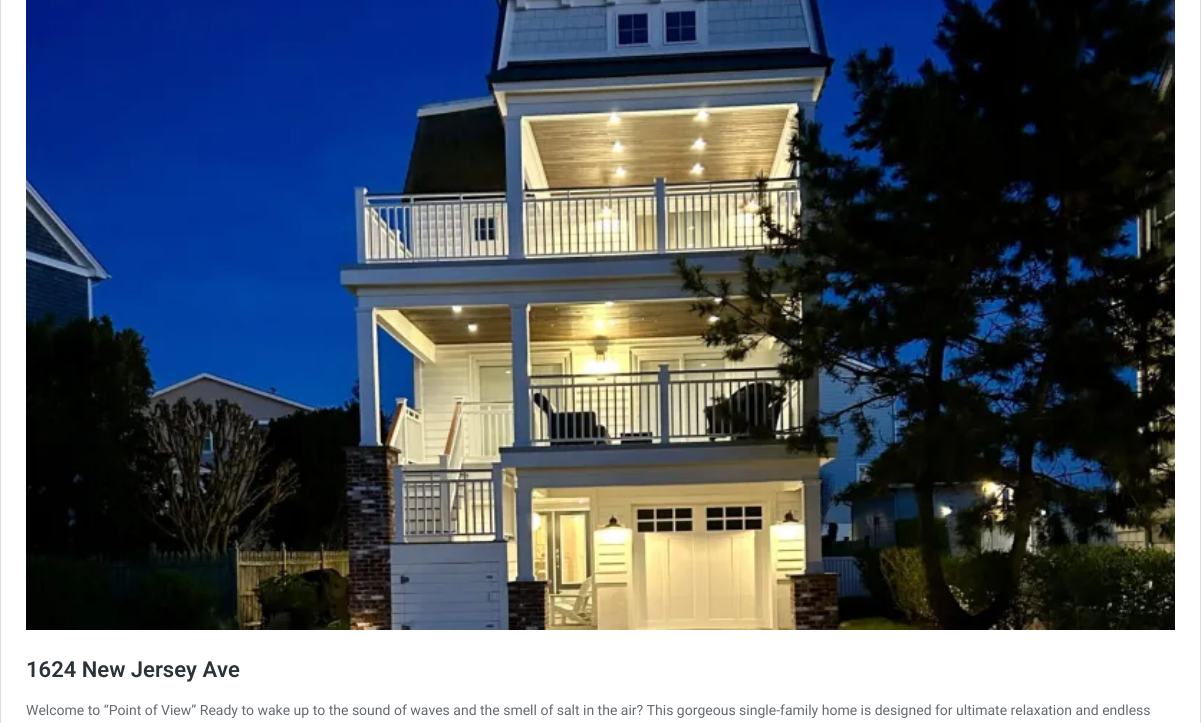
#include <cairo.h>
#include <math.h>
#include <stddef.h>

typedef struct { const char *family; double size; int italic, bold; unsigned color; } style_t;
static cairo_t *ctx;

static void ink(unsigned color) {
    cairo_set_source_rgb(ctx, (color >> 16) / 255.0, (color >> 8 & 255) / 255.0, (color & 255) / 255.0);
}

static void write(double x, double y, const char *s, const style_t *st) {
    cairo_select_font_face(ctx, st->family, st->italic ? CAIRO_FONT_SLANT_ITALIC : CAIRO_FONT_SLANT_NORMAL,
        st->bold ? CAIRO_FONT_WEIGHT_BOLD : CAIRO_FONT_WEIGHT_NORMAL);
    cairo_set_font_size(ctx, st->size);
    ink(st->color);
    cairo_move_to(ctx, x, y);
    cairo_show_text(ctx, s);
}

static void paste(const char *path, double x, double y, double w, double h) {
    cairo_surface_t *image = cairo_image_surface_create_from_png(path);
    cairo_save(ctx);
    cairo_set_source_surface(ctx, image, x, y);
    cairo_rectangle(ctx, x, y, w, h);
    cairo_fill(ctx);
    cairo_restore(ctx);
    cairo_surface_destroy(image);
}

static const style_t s1 = {"Roboto SemiBold", 22, 0, 0, 0x2c3338};
static const style_t s2 = {"Roboto", 14, 0, 0, 0x646970};

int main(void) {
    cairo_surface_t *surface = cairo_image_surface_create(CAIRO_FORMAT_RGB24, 1201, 723);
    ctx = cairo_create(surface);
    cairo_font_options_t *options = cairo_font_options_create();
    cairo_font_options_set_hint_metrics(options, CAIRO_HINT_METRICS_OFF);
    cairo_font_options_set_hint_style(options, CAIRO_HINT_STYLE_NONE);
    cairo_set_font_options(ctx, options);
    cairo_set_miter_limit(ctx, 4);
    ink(0xffffff);
    cairo_paint(ctx);
    cairo_rectangle(ctx, 0.5, -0.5, 1200, 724);
    ink(0xdcdcde);
    cairo_set_line_width(ctx, 1);
    cairo_stroke(ctx);
    paste("pic1.png", 26, 0, 1149, 630);
    write(26, 677, "1624 New Jersey Ave", &s1);
    write(26, 715, "Welcome to “Point of View” Ready to wake up to the sound of waves and the smell of salt in the air? This gorgeous single-family home is designed for ultimate relaxation and endless", &s2);
    cairo_surface_write_to_png(surface, "screenshot.png");
    cairo_font_options_destroy(options);
    cairo_destroy(ctx);
    cairo_surface_destroy(surface);
    return 0;
}
